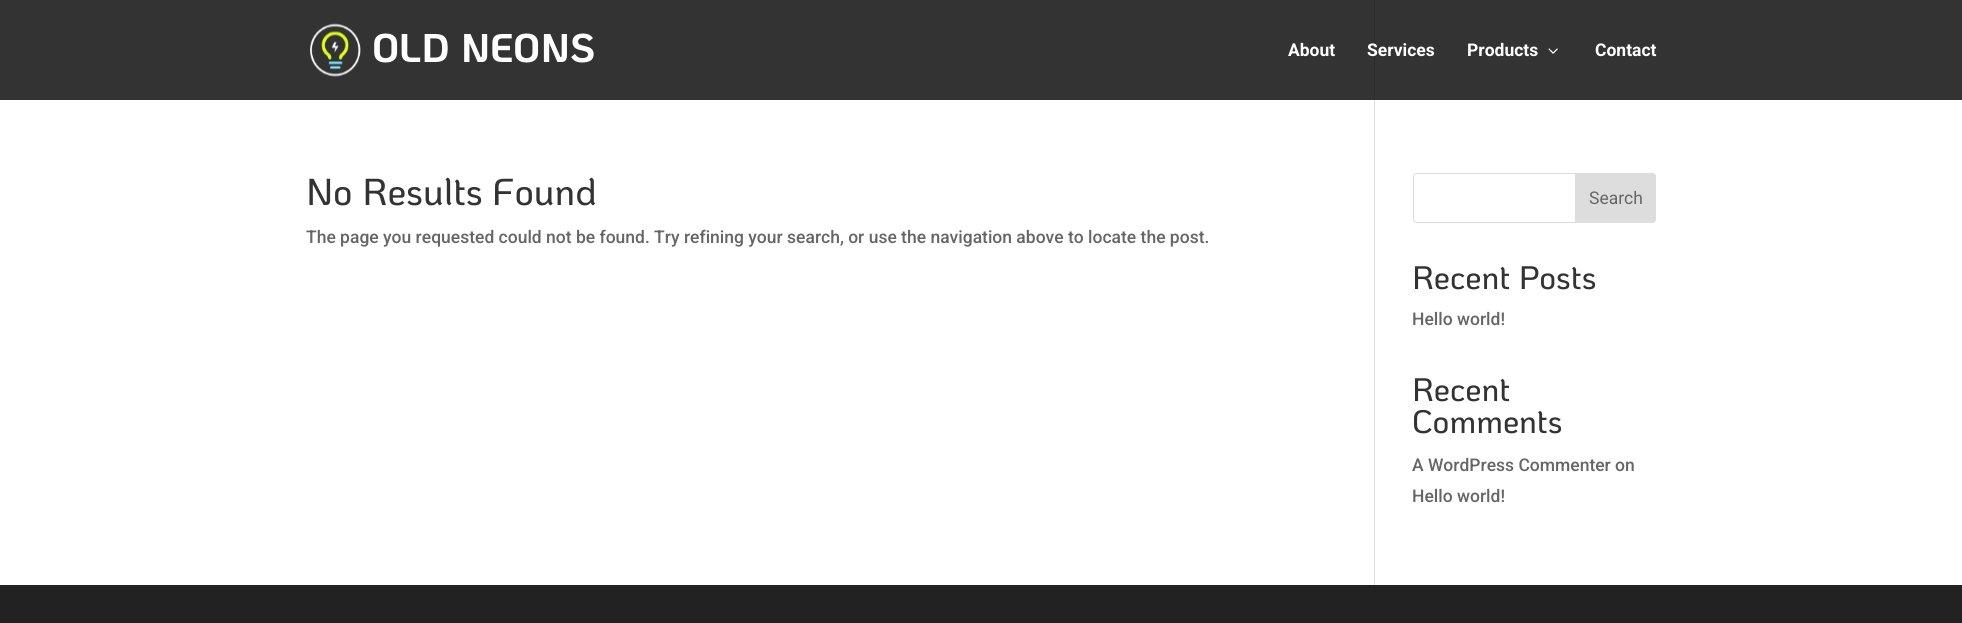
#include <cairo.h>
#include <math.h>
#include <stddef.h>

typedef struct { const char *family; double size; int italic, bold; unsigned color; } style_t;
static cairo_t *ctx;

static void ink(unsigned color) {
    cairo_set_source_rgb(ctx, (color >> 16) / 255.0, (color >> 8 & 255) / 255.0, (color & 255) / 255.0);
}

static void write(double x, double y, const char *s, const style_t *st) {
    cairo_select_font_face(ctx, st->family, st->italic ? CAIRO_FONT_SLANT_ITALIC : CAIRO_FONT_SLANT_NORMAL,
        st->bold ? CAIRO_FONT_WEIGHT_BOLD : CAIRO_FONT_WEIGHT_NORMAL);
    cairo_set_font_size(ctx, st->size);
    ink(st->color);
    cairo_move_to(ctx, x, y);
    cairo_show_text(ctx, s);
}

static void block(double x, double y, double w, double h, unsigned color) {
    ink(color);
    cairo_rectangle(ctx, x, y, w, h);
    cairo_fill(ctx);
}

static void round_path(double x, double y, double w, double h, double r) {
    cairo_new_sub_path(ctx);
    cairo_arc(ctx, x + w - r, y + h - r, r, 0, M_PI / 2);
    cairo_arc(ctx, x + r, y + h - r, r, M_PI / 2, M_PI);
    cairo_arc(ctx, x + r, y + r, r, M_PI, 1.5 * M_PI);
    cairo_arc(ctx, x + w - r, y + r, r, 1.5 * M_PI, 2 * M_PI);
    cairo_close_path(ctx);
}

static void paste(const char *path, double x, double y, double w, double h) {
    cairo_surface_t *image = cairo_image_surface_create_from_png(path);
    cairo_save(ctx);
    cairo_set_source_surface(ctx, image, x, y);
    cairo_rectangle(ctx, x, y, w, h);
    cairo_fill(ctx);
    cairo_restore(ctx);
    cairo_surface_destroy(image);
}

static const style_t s1 = {"KoHo", 40, 0, 1, 0xffffff};
static const style_t s2 = {"Roboto", 17.5, 0, 1, 0xffffff};
static const style_t s3 = {"KoHo Medium", 37.5, 0, 0, 0x333333};
static const style_t s4 = {"Roboto Medium", 17.5, 0, 0, 0x666666};
static const style_t s5 = {"Roboto", 17.5, 0, 0, 0x666666};
static const style_t s6 = {"KoHo Medium", 32.5, 0, 0, 0x333333};

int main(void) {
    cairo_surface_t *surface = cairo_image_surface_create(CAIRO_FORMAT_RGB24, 1962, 623);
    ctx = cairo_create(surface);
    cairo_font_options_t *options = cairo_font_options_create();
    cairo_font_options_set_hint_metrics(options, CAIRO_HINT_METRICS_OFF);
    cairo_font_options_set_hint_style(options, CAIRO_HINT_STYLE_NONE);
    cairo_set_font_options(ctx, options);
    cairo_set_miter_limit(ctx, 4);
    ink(0xffffff);
    cairo_paint(ctx);
    block(0, 0, 1962, 100, 0x333333);
    paste("pic1.png", 310, 23, 51, 54);
    write(372, 62, "OLD NEONS", &s1);
    write(1288, 56, "About", &s2);
    block(1374, 0, 1, 100, 0x2d2d2d);
    write(1367, 56, "Services", &s2);
    write(1467, 56, "Products", &s2);
    paste("pic2.png", 1548, 48, 10, 6);
    write(1595, 56, "Contact", &s2);
    block(1374, 100, 1, 485, 0xe2e2e2);
    write(306, 205, "No Results Found", &s3);
    write(306, 243, "The page you requested could not be found. Try refining your search, or use the navigation above to locate the post.", &s4);
    round_path(1413.5, 173.5, 242, 49, 3.5);
    ink(0xdddddd);
    cairo_set_line_width(ctx, 1);
    cairo_stroke(ctx);
    cairo_new_path(ctx);
    cairo_move_to(ctx, 1575.5, 173.5);
    cairo_line_to(ctx, 1652, 173.5);
    cairo_curve_to(ctx, 1654, 173.5, 1655.5, 175, 1655.5, 177);
    cairo_line_to(ctx, 1655.5, 219);
    cairo_curve_to(ctx, 1655.5, 221, 1654, 222.5, 1652, 222.5);
    cairo_line_to(ctx, 1575.5, 222.5);
    cairo_close_path(ctx);
    cairo_fill_preserve(ctx);
    cairo_stroke(ctx);
    write(1589, 204, "Search", &s5);
    write(1412, 289, "Recent Posts", &s6);
    write(1412, 325, "Hello world!", &s4);
    write(1412, 401, "Recent", &s6);
    write(1412, 433, "Comments", &s6);
    write(1412, 471, "A WordPress Commenter on", &s4);
    write(1412, 502, "Hello world!", &s4);
    block(0, 585, 1962, 38, 0x222222);
    cairo_surface_write_to_png(surface, "screenshot.png");
    cairo_font_options_destroy(options);
    cairo_destroy(ctx);
    cairo_surface_destroy(surface);
    return 0;
}
